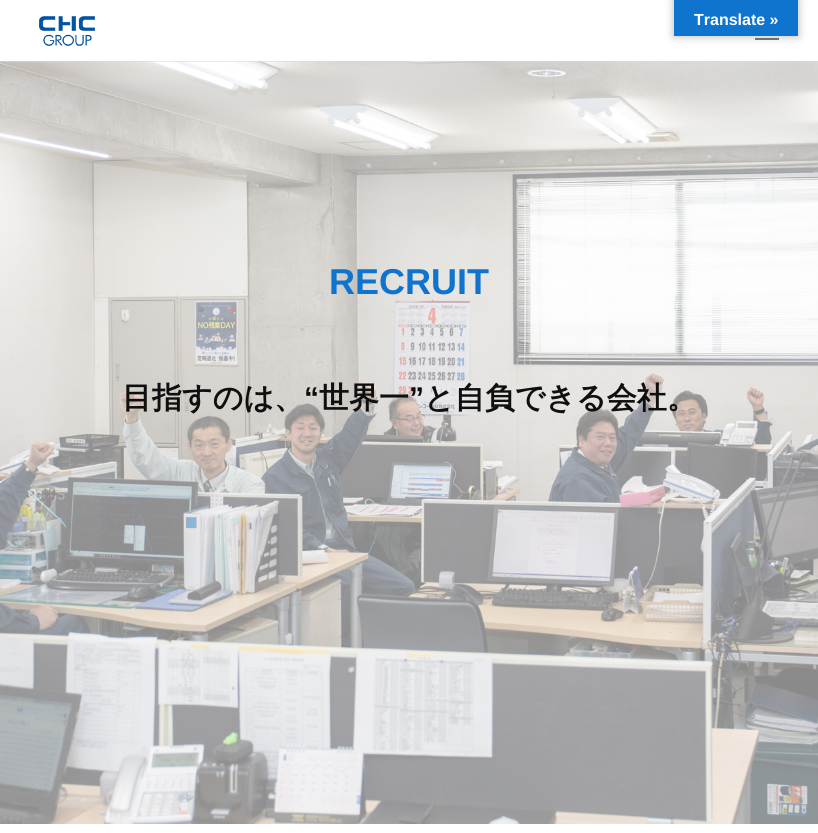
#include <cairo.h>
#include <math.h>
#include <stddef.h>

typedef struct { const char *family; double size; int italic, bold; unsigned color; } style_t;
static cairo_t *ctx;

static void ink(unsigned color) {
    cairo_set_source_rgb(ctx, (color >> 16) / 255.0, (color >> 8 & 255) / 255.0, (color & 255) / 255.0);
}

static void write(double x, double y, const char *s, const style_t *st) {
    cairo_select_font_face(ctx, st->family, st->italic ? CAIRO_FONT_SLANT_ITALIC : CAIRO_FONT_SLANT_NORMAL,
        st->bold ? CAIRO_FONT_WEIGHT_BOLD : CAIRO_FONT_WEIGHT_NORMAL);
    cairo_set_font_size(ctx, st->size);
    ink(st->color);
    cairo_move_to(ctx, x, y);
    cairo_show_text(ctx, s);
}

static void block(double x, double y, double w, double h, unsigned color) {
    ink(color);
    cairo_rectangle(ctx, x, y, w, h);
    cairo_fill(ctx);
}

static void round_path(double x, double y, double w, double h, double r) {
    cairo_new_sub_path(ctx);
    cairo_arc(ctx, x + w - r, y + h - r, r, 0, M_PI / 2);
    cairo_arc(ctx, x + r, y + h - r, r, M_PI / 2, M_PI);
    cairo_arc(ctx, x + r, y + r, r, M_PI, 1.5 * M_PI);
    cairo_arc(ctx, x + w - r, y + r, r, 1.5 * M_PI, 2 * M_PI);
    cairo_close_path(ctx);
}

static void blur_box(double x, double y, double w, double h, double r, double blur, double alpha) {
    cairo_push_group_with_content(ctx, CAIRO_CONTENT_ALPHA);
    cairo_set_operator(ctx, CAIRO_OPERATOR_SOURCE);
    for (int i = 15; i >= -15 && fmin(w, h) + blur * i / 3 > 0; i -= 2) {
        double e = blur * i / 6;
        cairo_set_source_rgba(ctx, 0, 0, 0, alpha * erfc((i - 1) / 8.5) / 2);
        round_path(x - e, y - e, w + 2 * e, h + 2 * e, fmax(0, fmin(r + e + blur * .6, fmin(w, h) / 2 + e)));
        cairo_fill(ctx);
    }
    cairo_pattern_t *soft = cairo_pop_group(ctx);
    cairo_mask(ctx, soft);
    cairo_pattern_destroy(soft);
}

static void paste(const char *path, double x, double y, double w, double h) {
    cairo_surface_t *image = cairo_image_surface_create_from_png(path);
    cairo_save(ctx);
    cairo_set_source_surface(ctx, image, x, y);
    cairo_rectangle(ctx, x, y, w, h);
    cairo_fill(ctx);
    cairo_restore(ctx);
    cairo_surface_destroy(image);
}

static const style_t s1 = {"Liberation Sans", 16, 0, 1, 0xffffff};
static const style_t s2 = {"Liberation Sans", 36, 0, 1, 0x0f74ce};
static const style_t s3 = {"WenQuanYi Zen Hei", 30, 0, 1, 0x0f0f0f};
static const style_t s4 = {"Liberation Sans", 30, 0, 1, 0x0f0f0f};

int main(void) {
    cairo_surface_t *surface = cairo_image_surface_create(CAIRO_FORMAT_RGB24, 818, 833);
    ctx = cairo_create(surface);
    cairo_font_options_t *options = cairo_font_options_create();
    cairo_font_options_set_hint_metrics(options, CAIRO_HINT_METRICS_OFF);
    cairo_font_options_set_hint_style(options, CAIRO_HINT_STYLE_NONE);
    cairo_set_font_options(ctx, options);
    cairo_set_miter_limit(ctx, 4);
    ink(0xffffff);
    cairo_paint(ctx);
    block(755, 38, 24, 2, 0x797979);
    ink(0x000000);
    blur_box(674, 0, 124, 36, 0, 4.5, 0.3);
    block(674, 0, 124, 36, 0x0f74ce);
    write(694, 25, "Translate »", &s1);
    paste("pic2.png", 0, 61, 818, 763);
    cairo_set_source_rgba(ctx, 1, 1, 1, 0.5);
    cairo_rectangle(ctx, 0, 61, 818, 1);
    cairo_fill(ctx);
    cairo_set_source_rgba(ctx, 0, 0, 0, 0.08);
    cairo_rectangle(ctx, 0, 61, 818, 1);
    cairo_fill(ctx);
    paste("pic1.png", 39, 16, 56, 30);
    write(329, 294, "RECRUIT", &s2);
    write(122, 408, "目指すのは、", &s3);
    write(304, 408, "“", &s4);
    write(319, 408, "世界一", &s3);
    write(409, 408, "”", &s4);
    write(424, 408, "と自負できる会社。", &s3);
    cairo_surface_write_to_png(surface, "screenshot.png");
    cairo_font_options_destroy(options);
    cairo_destroy(ctx);
    cairo_surface_destroy(surface);
    return 0;
}
